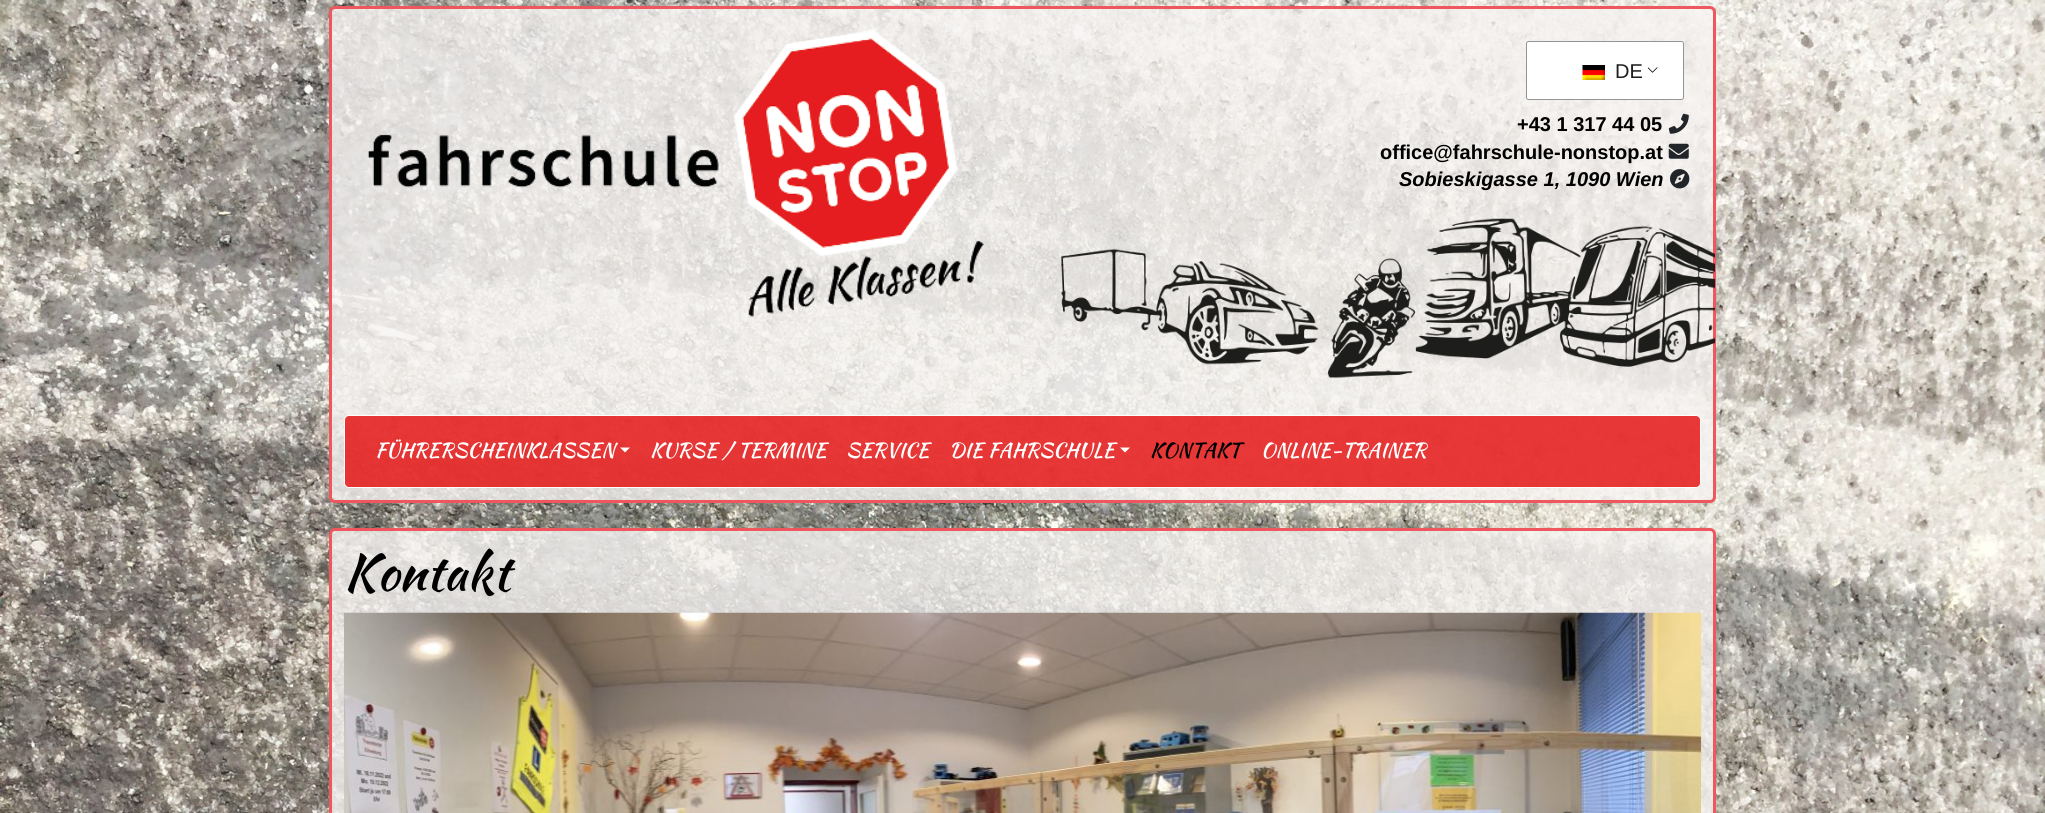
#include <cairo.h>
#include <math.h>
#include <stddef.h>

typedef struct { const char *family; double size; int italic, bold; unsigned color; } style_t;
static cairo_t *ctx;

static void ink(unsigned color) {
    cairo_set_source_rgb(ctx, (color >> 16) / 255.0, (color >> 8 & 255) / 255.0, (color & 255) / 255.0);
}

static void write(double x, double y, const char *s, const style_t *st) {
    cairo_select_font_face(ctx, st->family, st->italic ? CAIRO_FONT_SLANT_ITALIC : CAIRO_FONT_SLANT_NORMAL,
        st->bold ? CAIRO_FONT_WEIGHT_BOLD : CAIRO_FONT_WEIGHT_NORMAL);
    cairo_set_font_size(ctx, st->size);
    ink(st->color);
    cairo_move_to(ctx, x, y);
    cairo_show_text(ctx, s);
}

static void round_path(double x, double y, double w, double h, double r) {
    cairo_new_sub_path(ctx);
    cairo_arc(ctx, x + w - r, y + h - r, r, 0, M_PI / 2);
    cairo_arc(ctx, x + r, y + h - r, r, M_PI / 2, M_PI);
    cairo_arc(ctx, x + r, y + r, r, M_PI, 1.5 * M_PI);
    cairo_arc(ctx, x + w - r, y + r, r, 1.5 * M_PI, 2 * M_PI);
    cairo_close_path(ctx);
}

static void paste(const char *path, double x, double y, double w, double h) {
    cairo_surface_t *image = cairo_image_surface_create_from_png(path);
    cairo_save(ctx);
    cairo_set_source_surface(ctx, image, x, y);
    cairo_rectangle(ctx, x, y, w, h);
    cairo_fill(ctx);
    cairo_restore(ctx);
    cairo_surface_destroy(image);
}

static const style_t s1 = {"Liberation Sans", 20, 0, 0, 0x1e1e1e};
static const style_t s2 = {"Liberation Sans", 20, 0, 1, 0x000000};
static const style_t s3 = {"Liberation Sans", 20, 1, 1, 0x000000};
static const style_t s4 = {"Kaushan Script", 20, 0, 0, 0xffffff};
static const style_t s5 = {"Kaushan Script", 20, 0, 0, 0x000000};
static const style_t s6 = {"Kaushan Script", 50, 0, 0, 0x000000};

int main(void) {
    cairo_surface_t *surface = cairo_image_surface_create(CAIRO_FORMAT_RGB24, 2045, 813);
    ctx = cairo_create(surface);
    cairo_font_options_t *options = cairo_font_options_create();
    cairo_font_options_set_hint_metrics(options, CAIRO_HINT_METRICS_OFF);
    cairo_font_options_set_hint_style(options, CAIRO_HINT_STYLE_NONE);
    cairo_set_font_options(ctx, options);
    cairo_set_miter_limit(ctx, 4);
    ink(0xffffff);
    cairo_paint(ctx);
    paste("pic1.png", 0, 0, 2045, 813);
    cairo_set_source_rgba(ctx, 0.965, 0.957, 0.949, 0.8);
    round_path(330.5, 7.5, 1384, 494, 4.5);
    cairo_fill_preserve(ctx);
    ink(0xed575d);
    cairo_set_line_width(ctx, 3);
    cairo_stroke(ctx);
    paste("pic2.png", 367, 30, 617, 287);
    ink(0xffffff);
    round_path(1526, 41, 158, 59, 2.5);
    cairo_fill(ctx);
    paste("pic3.png", 1648, 67, 10, 6);
    round_path(1526.5, 41.5, 157, 58, 2);
    ink(0x949494);
    cairo_set_line_width(ctx, 1);
    cairo_stroke(ctx);
    paste("pic4.png", 1582, 65, 23, 15);
    write(1615, 78, "DE", &s1);
    write(1517, 131, "+43 1 317 44 05", &s2);
    paste("pic5.png", 1668, 113, 21, 21);
    write(1380, 159, "office@fahrschule-nonstop.at", &s2);
    paste("pic6.png", 1668, 143, 21, 16);
    write(1399, 186, "Sobieskigasse 1, 1090 Wien", &s3);
    paste("pic7.png", 1670, 169, 20, 20);
    paste("pic8.png", 1061, 218, 654, 160);
    cairo_set_source_rgba(ctx, 0.894, 0.039, 0.039, 0.8);
    round_path(344.5, 415.5, 1356, 72, 4.5);
    cairo_fill_preserve(ctx);
    ink(0xffffff);
    cairo_stroke(ctx);
    write(375, 457, "FÜHRERSCHEINKLASSEN", &s4);
    cairo_new_path(ctx);
    cairo_move_to(ctx, 620, 447.5);
    cairo_line_to(ctx, 630, 447.5);
    cairo_line_to(ctx, 625, 452.5);
    cairo_close_path(ctx);
    cairo_fill(ctx);
    write(650, 457, "KURSE / TERMINE", &s4);
    write(846, 457, "SERVICE", &s4);
    write(949, 457, "DIE FAHRSCHULE", &s4);
    cairo_new_path(ctx);
    cairo_move_to(ctx, 1120, 447.5);
    cairo_line_to(ctx, 1130, 447.5);
    cairo_line_to(ctx, 1125, 452.5);
    cairo_close_path(ctx);
    cairo_fill(ctx);
    write(1150, 457, "KONTAKT", &s5);
    write(1261, 457, "ONLINE-TRAINER", &s4);
    cairo_set_source_rgba(ctx, 0.965, 0.957, 0.949, 0.8);
    round_path(330.5, 529.5, 1384, 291, 4.5);
    cairo_fill_preserve(ctx);
    ink(0xed575d);
    cairo_set_line_width(ctx, 3);
    cairo_stroke(ctx);
    write(344, 590, "Kontakt", &s6);
    paste("pic9.png", 343, 612, 1359, 201);
    cairo_surface_write_to_png(surface, "screenshot.png");
    cairo_font_options_destroy(options);
    cairo_destroy(ctx);
    cairo_surface_destroy(surface);
    return 0;
}
